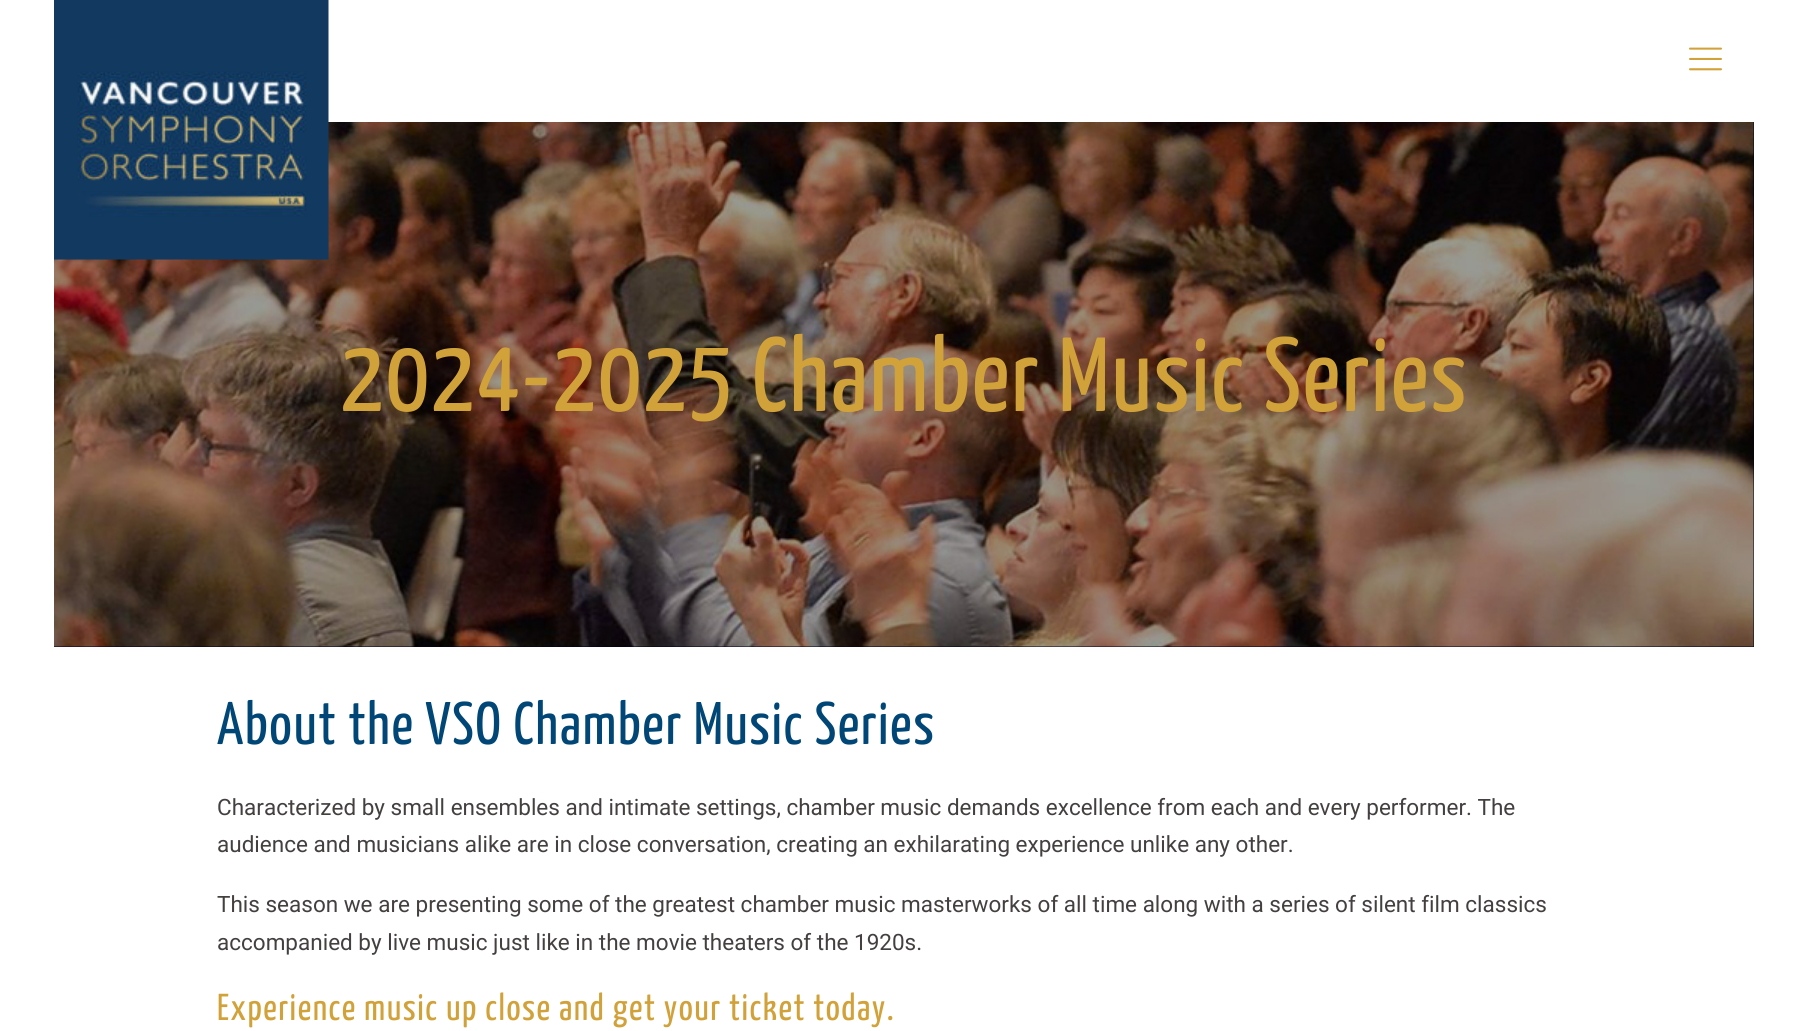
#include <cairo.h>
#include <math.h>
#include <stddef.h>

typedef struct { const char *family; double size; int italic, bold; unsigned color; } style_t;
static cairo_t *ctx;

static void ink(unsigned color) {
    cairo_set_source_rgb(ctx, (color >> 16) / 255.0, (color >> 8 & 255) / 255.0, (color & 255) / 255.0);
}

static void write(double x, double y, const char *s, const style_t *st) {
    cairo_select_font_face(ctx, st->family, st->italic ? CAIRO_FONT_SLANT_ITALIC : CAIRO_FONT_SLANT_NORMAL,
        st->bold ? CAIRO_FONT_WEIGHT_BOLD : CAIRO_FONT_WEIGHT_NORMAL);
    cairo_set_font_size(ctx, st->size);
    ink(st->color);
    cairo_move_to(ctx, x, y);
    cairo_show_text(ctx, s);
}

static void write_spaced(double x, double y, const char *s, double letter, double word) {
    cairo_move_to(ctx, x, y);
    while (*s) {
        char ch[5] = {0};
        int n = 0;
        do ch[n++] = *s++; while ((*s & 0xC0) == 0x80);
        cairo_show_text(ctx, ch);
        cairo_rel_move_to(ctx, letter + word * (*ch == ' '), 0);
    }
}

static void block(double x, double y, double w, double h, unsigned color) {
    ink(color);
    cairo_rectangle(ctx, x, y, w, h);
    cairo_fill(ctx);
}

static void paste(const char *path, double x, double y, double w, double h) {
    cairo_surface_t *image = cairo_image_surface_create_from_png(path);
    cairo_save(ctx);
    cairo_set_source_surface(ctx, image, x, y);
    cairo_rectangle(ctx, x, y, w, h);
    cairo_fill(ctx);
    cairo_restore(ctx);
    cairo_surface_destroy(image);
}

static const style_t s1 = {"Roboto", 22.5, 0, 0, 0x444040};

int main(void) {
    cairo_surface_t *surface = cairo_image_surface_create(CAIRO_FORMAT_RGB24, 1807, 1031);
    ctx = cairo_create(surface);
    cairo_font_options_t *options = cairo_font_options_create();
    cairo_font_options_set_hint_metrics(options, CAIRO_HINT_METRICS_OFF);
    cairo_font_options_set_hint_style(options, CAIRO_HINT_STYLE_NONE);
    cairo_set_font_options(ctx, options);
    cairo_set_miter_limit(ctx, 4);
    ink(0xffffff);
    cairo_paint(ctx);
    block(54, 122, 1700, 525, 0x000119);
    paste("pic1.png", 54, 122, 1700, 525);
    paste("pic2.png", 54, 0, 275, 260);
    paste("pic3.png", 1689, 47, 33, 24);
    cairo_select_font_face(ctx, "Yanone Kaffeesatz", CAIRO_FONT_SLANT_NORMAL, CAIRO_FONT_WEIGHT_NORMAL);
    cairo_set_font_size(ctx, 105);
    ink(0xd2a23a);
    write_spaced(340, 411, "2024-2025 Chamber Music Series", 1.5, 0);
    cairo_set_font_size(ctx, 60);
    ink(0x004676);
    write_spaced(217, 744, "About the VSO Chamber Music Series", 1.5, 0);
    write(217, 815, "Characterized by small ensembles and intimate settings, chamber music demands excellence from each and every performer. The", &s1);
    write(217, 852, "audience and musicians alike are in close conversation, creating an exhilarating experience unlike any other.", &s1);
    write(217, 912, "This season we are presenting some of the greatest chamber music masterworks of all time along with a series of silent film classics", &s1);
    write(217, 950, "accompanied by live music just like in the movie theaters of the 1920s.", &s1);
    cairo_select_font_face(ctx, "Yanone Kaffeesatz", CAIRO_FONT_SLANT_NORMAL, CAIRO_FONT_WEIGHT_NORMAL);
    cairo_set_font_size(ctx, 37.5);
    ink(0xd2a23a);
    write_spaced(217, 1020, "Experience music up close and get your ticket today.", 1.5, 0);
    cairo_surface_write_to_png(surface, "screenshot.png");
    cairo_font_options_destroy(options);
    cairo_destroy(ctx);
    cairo_surface_destroy(surface);
    return 0;
}
